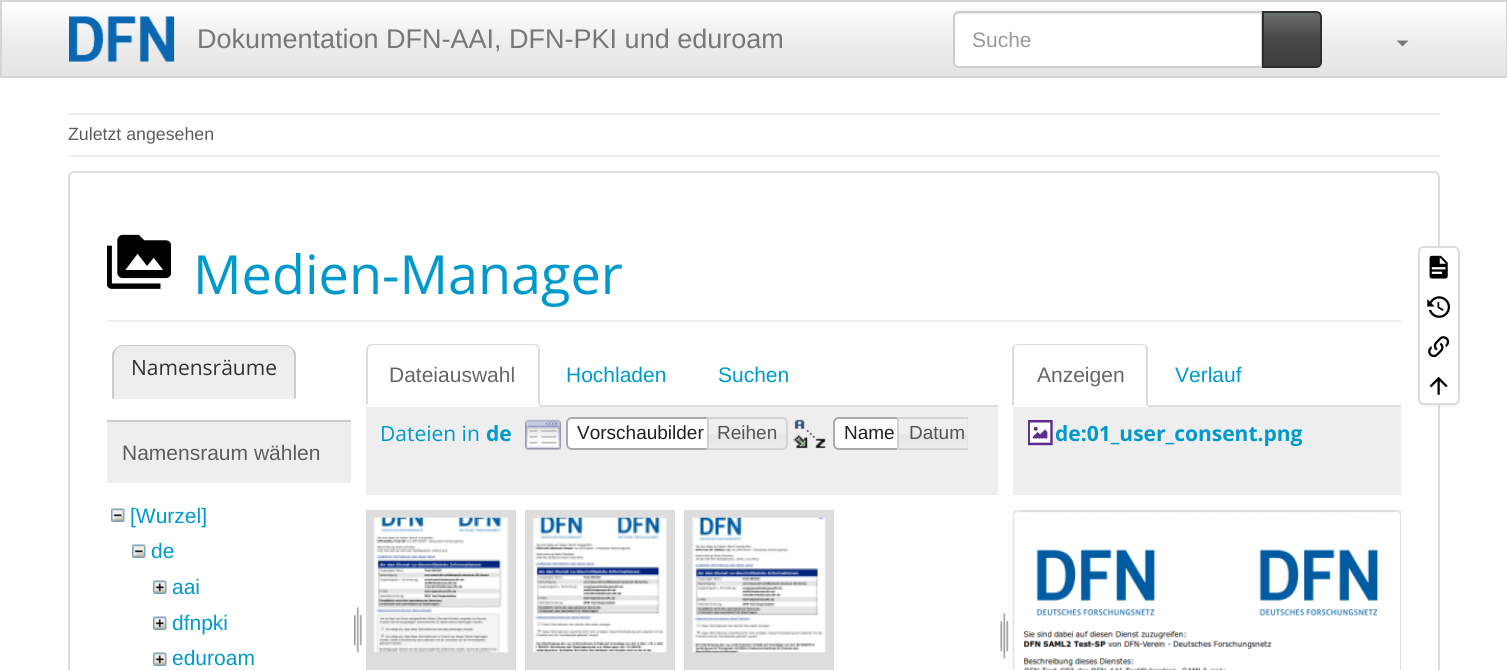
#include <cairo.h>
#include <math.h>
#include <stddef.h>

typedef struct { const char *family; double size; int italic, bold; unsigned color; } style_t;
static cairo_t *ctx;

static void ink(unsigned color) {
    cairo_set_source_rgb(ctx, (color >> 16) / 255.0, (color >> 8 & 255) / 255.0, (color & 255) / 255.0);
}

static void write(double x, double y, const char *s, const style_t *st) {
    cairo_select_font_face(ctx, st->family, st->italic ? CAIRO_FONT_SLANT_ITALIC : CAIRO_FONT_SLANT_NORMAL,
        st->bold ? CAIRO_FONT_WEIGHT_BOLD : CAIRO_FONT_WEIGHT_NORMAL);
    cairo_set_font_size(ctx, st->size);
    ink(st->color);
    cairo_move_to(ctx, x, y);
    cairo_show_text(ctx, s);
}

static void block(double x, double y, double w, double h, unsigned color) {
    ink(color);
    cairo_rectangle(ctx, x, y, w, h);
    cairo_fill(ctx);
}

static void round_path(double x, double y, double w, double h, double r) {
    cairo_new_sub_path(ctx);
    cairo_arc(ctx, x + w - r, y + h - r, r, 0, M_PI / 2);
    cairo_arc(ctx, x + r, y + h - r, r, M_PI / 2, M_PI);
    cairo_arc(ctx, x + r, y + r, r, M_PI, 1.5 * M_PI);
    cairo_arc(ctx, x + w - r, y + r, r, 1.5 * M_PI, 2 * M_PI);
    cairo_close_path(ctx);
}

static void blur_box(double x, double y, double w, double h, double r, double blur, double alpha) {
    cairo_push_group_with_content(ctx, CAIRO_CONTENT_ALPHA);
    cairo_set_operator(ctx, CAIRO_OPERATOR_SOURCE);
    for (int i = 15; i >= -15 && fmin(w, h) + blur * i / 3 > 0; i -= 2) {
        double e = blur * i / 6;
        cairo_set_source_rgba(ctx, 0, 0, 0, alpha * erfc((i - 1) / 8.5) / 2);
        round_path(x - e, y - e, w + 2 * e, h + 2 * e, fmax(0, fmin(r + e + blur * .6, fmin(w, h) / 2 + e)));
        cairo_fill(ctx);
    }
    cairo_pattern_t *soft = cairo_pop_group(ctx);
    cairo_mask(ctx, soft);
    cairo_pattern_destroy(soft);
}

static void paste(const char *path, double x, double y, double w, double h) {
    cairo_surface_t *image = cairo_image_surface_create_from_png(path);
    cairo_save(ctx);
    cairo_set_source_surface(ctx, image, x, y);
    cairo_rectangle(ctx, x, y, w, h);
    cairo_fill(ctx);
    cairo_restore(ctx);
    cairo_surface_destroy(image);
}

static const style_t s1 = {"Liberation Sans", 27, 0, 0, 0x777777};
static const style_t s2 = {"Liberation Sans", 21, 0, 0, 0x999999};
static const style_t s3 = {"Liberation Sans", 17.75, 0, 0, 0x5d5d5d};
static const style_t s4 = {"Open Sans", 54, 0, 0, 0x0099cc};
static const style_t s5 = {"Open Sans", 21, 0, 0, 0x333333};
static const style_t s6 = {"Liberation Sans", 21, 0, 0, 0x5d5d5d};
static const style_t s7 = {"Liberation Sans", 21, 0, 0, 0x0099cc};
static const style_t s8 = {"Liberation Sans", 21, 0, 0, 0x666666};
static const style_t s9 = {"Open Sans", 21, 0, 0, 0x0099cc};
static const style_t s10 = {"Open Sans", 21, 0, 1, 0x0099cc};
static const style_t s11 = {"Liberation Sans", 19, 0, 0, 0x212121};
static const style_t s12 = {"Liberation Sans", 19, 0, 0, 0x555555};

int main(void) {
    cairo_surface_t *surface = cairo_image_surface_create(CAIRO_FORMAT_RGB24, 1507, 670);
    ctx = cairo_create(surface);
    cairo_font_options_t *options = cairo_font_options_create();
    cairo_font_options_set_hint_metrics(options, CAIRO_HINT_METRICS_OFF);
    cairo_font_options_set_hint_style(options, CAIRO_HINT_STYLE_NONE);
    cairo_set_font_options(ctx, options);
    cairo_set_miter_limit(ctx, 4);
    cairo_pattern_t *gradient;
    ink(0xffffff);
    cairo_paint(ctx);
    gradient = cairo_pattern_create_linear(754, 1.5, 754, 77);
    cairo_pattern_add_color_stop_rgba(gradient, 0, 1, 1, 1, 1);
    cairo_pattern_add_color_stop_rgba(gradient, 0.5, 0.933, 0.933, 0.933, 1);
    cairo_pattern_add_color_stop_rgba(gradient, 1, 0.894, 0.894, 0.894, 1);
    cairo_set_source(ctx, gradient);
    cairo_pattern_destroy(gradient);
    cairo_rectangle(ctx, 2, 7, 1504, 69);
    cairo_fill(ctx);
    cairo_rectangle(ctx, 1, 1, 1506, 76);
    ink(0xd5d5d5);
    cairo_stroke(ctx);
    paste("pic1.png", 69, 16, 106, 46);
    write(197, 48, "Dokumentation DFN-AAI, DFN-PKI und eduroam", &s1);
    ink(0xffffff);
    cairo_new_path(ctx);
    cairo_move_to(ctx, 959, 11);
    cairo_line_to(ctx, 1263, 11);
    cairo_line_to(ctx, 1263, 68);
    cairo_line_to(ctx, 959, 68);
    cairo_curve_to(ctx, 955.5, 68, 953, 65.5, 953, 62);
    cairo_line_to(ctx, 953, 17);
    cairo_curve_to(ctx, 953, 13.5, 955.5, 11, 959, 11);
    cairo_close_path(ctx);
    cairo_fill(ctx);
    ink(0xececec);
    cairo_new_path(ctx);
    cairo_move_to(ctx, 958, 14);
    cairo_line_to(ctx, 1262, 14);
    cairo_line_to(ctx, 1262, 12);
    cairo_line_to(ctx, 959, 12);
    cairo_curve_to(ctx, 956, 12, 954, 15, 954, 18);
    cairo_curve_to(ctx, 954, 16, 956, 14, 958, 14);
    cairo_close_path(ctx);
    cairo_fill(ctx);
    cairo_new_path(ctx);
    cairo_move_to(ctx, 959, 12);
    cairo_line_to(ctx, 1262, 12);
    cairo_line_to(ctx, 1262, 67);
    cairo_line_to(ctx, 959, 67);
    cairo_curve_to(ctx, 956, 67, 954, 65, 954, 62);
    cairo_line_to(ctx, 954, 17);
    cairo_curve_to(ctx, 954, 14, 956, 12, 959, 12);
    cairo_close_path(ctx);
    ink(0xcccccc);
    cairo_stroke(ctx);
    write(972, 47, "Suche", &s2);
    gradient = cairo_pattern_create_linear(1292, 12, 1292, 66);
    cairo_pattern_add_color_stop_rgba(gradient, 0, 0.427, 0.439, 0.439, 1);
    cairo_pattern_add_color_stop_rgba(gradient, 0.5, 0.278, 0.286, 0.286, 1);
    cairo_pattern_add_color_stop_rgba(gradient, 1, 0.239, 0.247, 0.247, 1);
    cairo_set_source(ctx, gradient);
    cairo_pattern_destroy(gradient);
    cairo_rectangle(ctx, 1264, 12, 56, 54);
    cairo_fill(ctx);
    cairo_new_path(ctx);
    cairo_move_to(ctx, 1263, 12);
    cairo_line_to(ctx, 1316, 12);
    cairo_curve_to(ctx, 1319, 12, 1321, 14, 1321, 17);
    cairo_line_to(ctx, 1321, 62);
    cairo_curve_to(ctx, 1321, 65, 1319, 67, 1316, 67);
    cairo_line_to(ctx, 1263, 67);
    cairo_close_path(ctx);
    ink(0x2e2f2f);
    cairo_stroke(ctx);
    ink(0x777777);
    cairo_new_path(ctx);
    cairo_move_to(ctx, 1396.5, 40.5);
    cairo_line_to(ctx, 1408.5, 40.5);
    cairo_line_to(ctx, 1402.5, 46.5);
    cairo_close_path(ctx);
    cairo_fill(ctx);
    block(68, 113, 1372, 2, 0xeeeeee);
    write(68, 140, "Zuletzt angesehen", &s3);
    block(68, 155, 1372, 2, 0xeeeeee);
    round_path(69, 172, 1370, 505, 5);
    ink(0xdddddd);
    cairo_stroke(ctx);
    block(107, 320, 1294, 2, 0xeeeeee);
    paste("pic2.png", 107, 234, 64, 55);
    write(193, 294, "Medien-Manager", &s4);
    ink(0xeeeeee);
    cairo_new_path(ctx);
    cairo_move_to(ctx, 124, 345);
    cairo_line_to(ctx, 285, 345);
    cairo_curve_to(ctx, 291, 345, 296, 350, 296, 356);
    cairo_line_to(ctx, 296, 399);
    cairo_line_to(ctx, 113, 399);
    cairo_line_to(ctx, 113, 356);
    cairo_curve_to(ctx, 113, 350, 118, 345, 124, 345);
    cairo_close_path(ctx);
    cairo_fill(ctx);
    ink(0xcccccc);
    cairo_new_path(ctx);
    cairo_move_to(ctx, 123, 345);
    cairo_curve_to(ctx, 120, 345, 117, 346, 116, 348);
    cairo_line_to(ctx, 117, 349);
    cairo_curve_to(ctx, 118, 347, 120, 346, 123, 346);
    cairo_line_to(ctx, 285, 346);
    cairo_curve_to(ctx, 288, 346, 290, 347, 291, 349);
    cairo_line_to(ctx, 292, 348);
    cairo_curve_to(ctx, 291, 346, 288, 345, 285, 345);
    cairo_close_path(ctx);
    cairo_fill(ctx);
    cairo_new_path(ctx);
    cairo_move_to(ctx, 296, 353);
    cairo_line_to(ctx, 296, 399);
    cairo_line_to(ctx, 294, 398);
    cairo_line_to(ctx, 294, 356);
    cairo_curve_to(ctx, 294, 354, 293, 351, 291, 349);
    cairo_line_to(ctx, 292, 348);
    cairo_curve_to(ctx, 294, 349, 295, 351, 296, 353);
    cairo_close_path(ctx);
    cairo_fill(ctx);
    ink(0xeeeeee);
    cairo_new_path(ctx);
    cairo_move_to(ctx, 296, 399);
    cairo_line_to(ctx, 294, 398);
    cairo_line_to(ctx, 114, 398);
    cairo_line_to(ctx, 112, 399);
    cairo_close_path(ctx);
    cairo_fill(ctx);
    ink(0xcccccc);
    cairo_new_path(ctx);
    cairo_move_to(ctx, 112, 399);
    cairo_line_to(ctx, 112, 353);
    cairo_curve_to(ctx, 113, 351, 114, 349, 116, 348);
    cairo_line_to(ctx, 117, 349);
    cairo_curve_to(ctx, 115, 351, 114, 354, 114, 356);
    cairo_line_to(ctx, 114, 398);
    cairo_close_path(ctx);
    cairo_fill(ctx);
    write(131, 375, "Namensräume", &s5);
    block(107, 422, 244, 61, 0xeeeeee);
    block(107, 420, 244, 2, 0xcccccc);
    write(122, 460, "Namensraum wählen", &s6);
    paste("pic3.png", 111, 508, 14, 14);
    write(130, 523, "[Wurzel]", &s7);
    paste("pic3.png", 132, 544, 14, 14);
    write(151, 558, "de", &s7);
    paste("pic4.png", 153, 580, 14, 14);
    write(172, 594, "aai", &s7);
    paste("pic4.png", 153, 616, 14, 14);
    write(172, 630, "dfnpki", &s7);
    paste("pic4.png", 153, 652, 14, 14);
    write(172, 665, "eduroam", &s7);
    paste("pic5.png", 354, 606, 8, 47);
    block(540, 405, 458, 2, 0xdddddd);
    cairo_new_path(ctx);
    cairo_move_to(ctx, 372, 344);
    cairo_curve_to(ctx, 371, 344, 369, 344, 368, 345);
    cairo_line_to(ctx, 369, 347);
    cairo_line_to(ctx, 372, 345);
    cairo_line_to(ctx, 534, 345);
    cairo_curve_to(ctx, 535, 345, 536, 346, 537, 347);
    cairo_line_to(ctx, 538, 345);
    cairo_curve_to(ctx, 537, 344, 535, 344, 534, 344);
    cairo_close_path(ctx);
    cairo_fill(ctx);
    cairo_new_path(ctx);
    cairo_move_to(ctx, 538, 345);
    cairo_curve_to(ctx, 539, 346, 540, 348, 540, 350);
    cairo_line_to(ctx, 540, 406);
    cairo_line_to(ctx, 538, 404);
    cairo_line_to(ctx, 538, 350);
    cairo_curve_to(ctx, 538, 349, 538, 347, 537, 347);
    cairo_close_path(ctx);
    cairo_fill(ctx);
    cairo_new_path(ctx);
    cairo_move_to(ctx, 366, 350);
    cairo_line_to(ctx, 366, 406);
    cairo_line_to(ctx, 368, 404);
    cairo_line_to(ctx, 368, 350);
    cairo_curve_to(ctx, 368, 349, 368, 347, 369, 347);
    cairo_line_to(ctx, 368, 345);
    cairo_curve_to(ctx, 367, 346, 366, 348, 366, 350);
    cairo_close_path(ctx);
    cairo_fill(ctx);
    write(389, 382, "Dateiauswahl", &s8);
    write(566, 382, "Hochladen", &s7);
    write(718, 382, "Suchen", &s7);
    block(366, 407, 632, 88, 0xeeeeee);
    write(380, 441, "Dateien in", &s9);
    write(486, 441, "de", &s10);
    paste("pic6.png", 525, 419, 36, 31);
    ink(0xffffff);
    cairo_new_path(ctx);
    cairo_move_to(ctx, 572, 417);
    cairo_line_to(ctx, 714, 417);
    cairo_line_to(ctx, 714, 450);
    cairo_line_to(ctx, 572, 450);
    cairo_curve_to(ctx, 568.5, 450, 566, 447.5, 566, 444);
    cairo_line_to(ctx, 566, 423);
    cairo_curve_to(ctx, 566, 419.5, 568.5, 417, 572, 417);
    cairo_close_path(ctx);
    cairo_fill(ctx);
    paste("pic7.png", 565, 417, 5, 33);
    cairo_new_path(ctx);
    cairo_move_to(ctx, 572, 418);
    cairo_line_to(ctx, 713, 418);
    cairo_line_to(ctx, 713, 449);
    cairo_line_to(ctx, 572, 449);
    cairo_curve_to(ctx, 569, 449, 567, 447, 567, 444);
    cairo_line_to(ctx, 567, 423);
    cairo_curve_to(ctx, 567, 420, 569, 418, 572, 418);
    cairo_close_path(ctx);
    ink(0xaaaaaa);
    cairo_stroke(ctx);
    write(577, 439, "Vorschaubilder", &s11);
    paste("pic8.png", 706, 417, 81, 33);
    cairo_new_path(ctx);
    cairo_move_to(ctx, 708, 418);
    cairo_line_to(ctx, 782, 418);
    cairo_curve_to(ctx, 785, 418, 787, 420, 787, 423);
    cairo_line_to(ctx, 787, 444);
    cairo_curve_to(ctx, 787, 447, 785, 449, 782, 449);
    cairo_line_to(ctx, 708, 449);
    cairo_close_path(ctx);
    ink(0xd3d3d3);
    cairo_stroke(ctx);
    write(717, 439, "Reihen", &s12);
    paste("pic9.png", 793, 419, 33, 30);
    ink(0xffffff);
    cairo_new_path(ctx);
    cairo_move_to(ctx, 839, 417);
    cairo_line_to(ctx, 905, 417);
    cairo_line_to(ctx, 905, 450);
    cairo_line_to(ctx, 839, 450);
    cairo_curve_to(ctx, 835.5, 450, 833, 447.5, 833, 444);
    cairo_line_to(ctx, 833, 423);
    cairo_curve_to(ctx, 833, 419.5, 835.5, 417, 839, 417);
    cairo_close_path(ctx);
    cairo_fill(ctx);
    paste("pic7.png", 832, 417, 5, 33);
    cairo_new_path(ctx);
    cairo_move_to(ctx, 839, 418);
    cairo_line_to(ctx, 904, 418);
    cairo_line_to(ctx, 904, 449);
    cairo_line_to(ctx, 839, 449);
    cairo_curve_to(ctx, 836, 449, 834, 447, 834, 444);
    cairo_line_to(ctx, 834, 423);
    cairo_curve_to(ctx, 834, 420, 836, 418, 839, 418);
    cairo_close_path(ctx);
    ink(0xaaaaaa);
    cairo_stroke(ctx);
    write(844, 439, "Name", &s11);
    block(967, 419, 1, 29, 0xe6e6e6);
    paste("pic10.png", 899, 419, 68, 29);
    cairo_save(ctx);
    cairo_rectangle(ctx, 513, 417, 455, 33);
    cairo_clip(ctx);
    cairo_new_path(ctx);
    cairo_move_to(ctx, 898, 418);
    cairo_line_to(ctx, 969, 418);
    cairo_curve_to(ctx, 972, 418, 974, 420, 974, 423);
    cairo_line_to(ctx, 974, 444);
    cairo_curve_to(ctx, 974, 447, 972, 449, 969, 449);
    cairo_line_to(ctx, 898, 449);
    cairo_close_path(ctx);
    ink(0xd3d3d3);
    cairo_stroke(ctx);
    cairo_restore(ctx);
    write(909, 439, "Datum", &s12);
    block(366, 510, 150, 160, 0xdddddd);
    paste("pic11.png", 373, 517, 136, 136);
    block(525, 510, 150, 160, 0xdddddd);
    paste("pic12.png", 532, 517, 135, 136);
    block(684, 510, 150, 160, 0xdddddd);
    paste("pic13.png", 692, 517, 134, 136);
    paste("pic14.png", 1000, 612, 9, 47);
    block(1148, 405, 253, 2, 0xdddddd);
    cairo_new_path(ctx);
    cairo_move_to(ctx, 1018, 344);
    cairo_line_to(ctx, 1014, 345);
    cairo_line_to(ctx, 1015, 346);
    cairo_line_to(ctx, 1018, 345);
    cairo_line_to(ctx, 1142, 345);
    cairo_line_to(ctx, 1145, 346);
    cairo_line_to(ctx, 1146, 345);
    cairo_line_to(ctx, 1142, 344);
    cairo_close_path(ctx);
    cairo_fill(ctx);
    cairo_new_path(ctx);
    cairo_move_to(ctx, 1146, 345);
    cairo_line_to(ctx, 1148, 347);
    cairo_line_to(ctx, 1148, 406);
    cairo_line_to(ctx, 1146, 405);
    cairo_line_to(ctx, 1146, 350);
    cairo_curve_to(ctx, 1146, 348, 1145, 347, 1145, 346);
    cairo_close_path(ctx);
    cairo_fill(ctx);
    cairo_new_path(ctx);
    cairo_move_to(ctx, 1012, 347);
    cairo_line_to(ctx, 1014, 345);
    cairo_line_to(ctx, 1015, 346);
    cairo_curve_to(ctx, 1015, 347, 1014, 348, 1014, 350);
    cairo_line_to(ctx, 1014, 405);
    cairo_line_to(ctx, 1012, 406);
    cairo_close_path(ctx);
    cairo_fill(ctx);
    write(1037, 382, "Anzeigen", &s8);
    write(1175, 382, "Verlauf", &s7);
    block(1013, 407, 388, 88, 0xeeeeee);
    paste("pic15.png", 1028, 420, 25, 26);
    write(1055, 441, "de:01_user_consent.png", &s10);
    paste("pic16.png", 1012, 510, 389, 160);
    ink(0x000000);
    blur_box(1418, 248, 42, 159, 6, 1, 0.05);
    ink(0xffffff);
    round_path(1419, 247, 40, 157, 5);
    cairo_fill_preserve(ctx);
    ink(0xdddddd);
    cairo_stroke(ctx);
    paste("pic17.png", 1429, 255, 19, 24);
    paste("pic18.png", 1427, 296, 23, 22);
    paste("pic19.png", 1428, 336, 22, 22);
    paste("pic20.png", 1429, 376, 19, 19);
    cairo_surface_write_to_png(surface, "screenshot.png");
    cairo_font_options_destroy(options);
    cairo_destroy(ctx);
    cairo_surface_destroy(surface);
    return 0;
}
